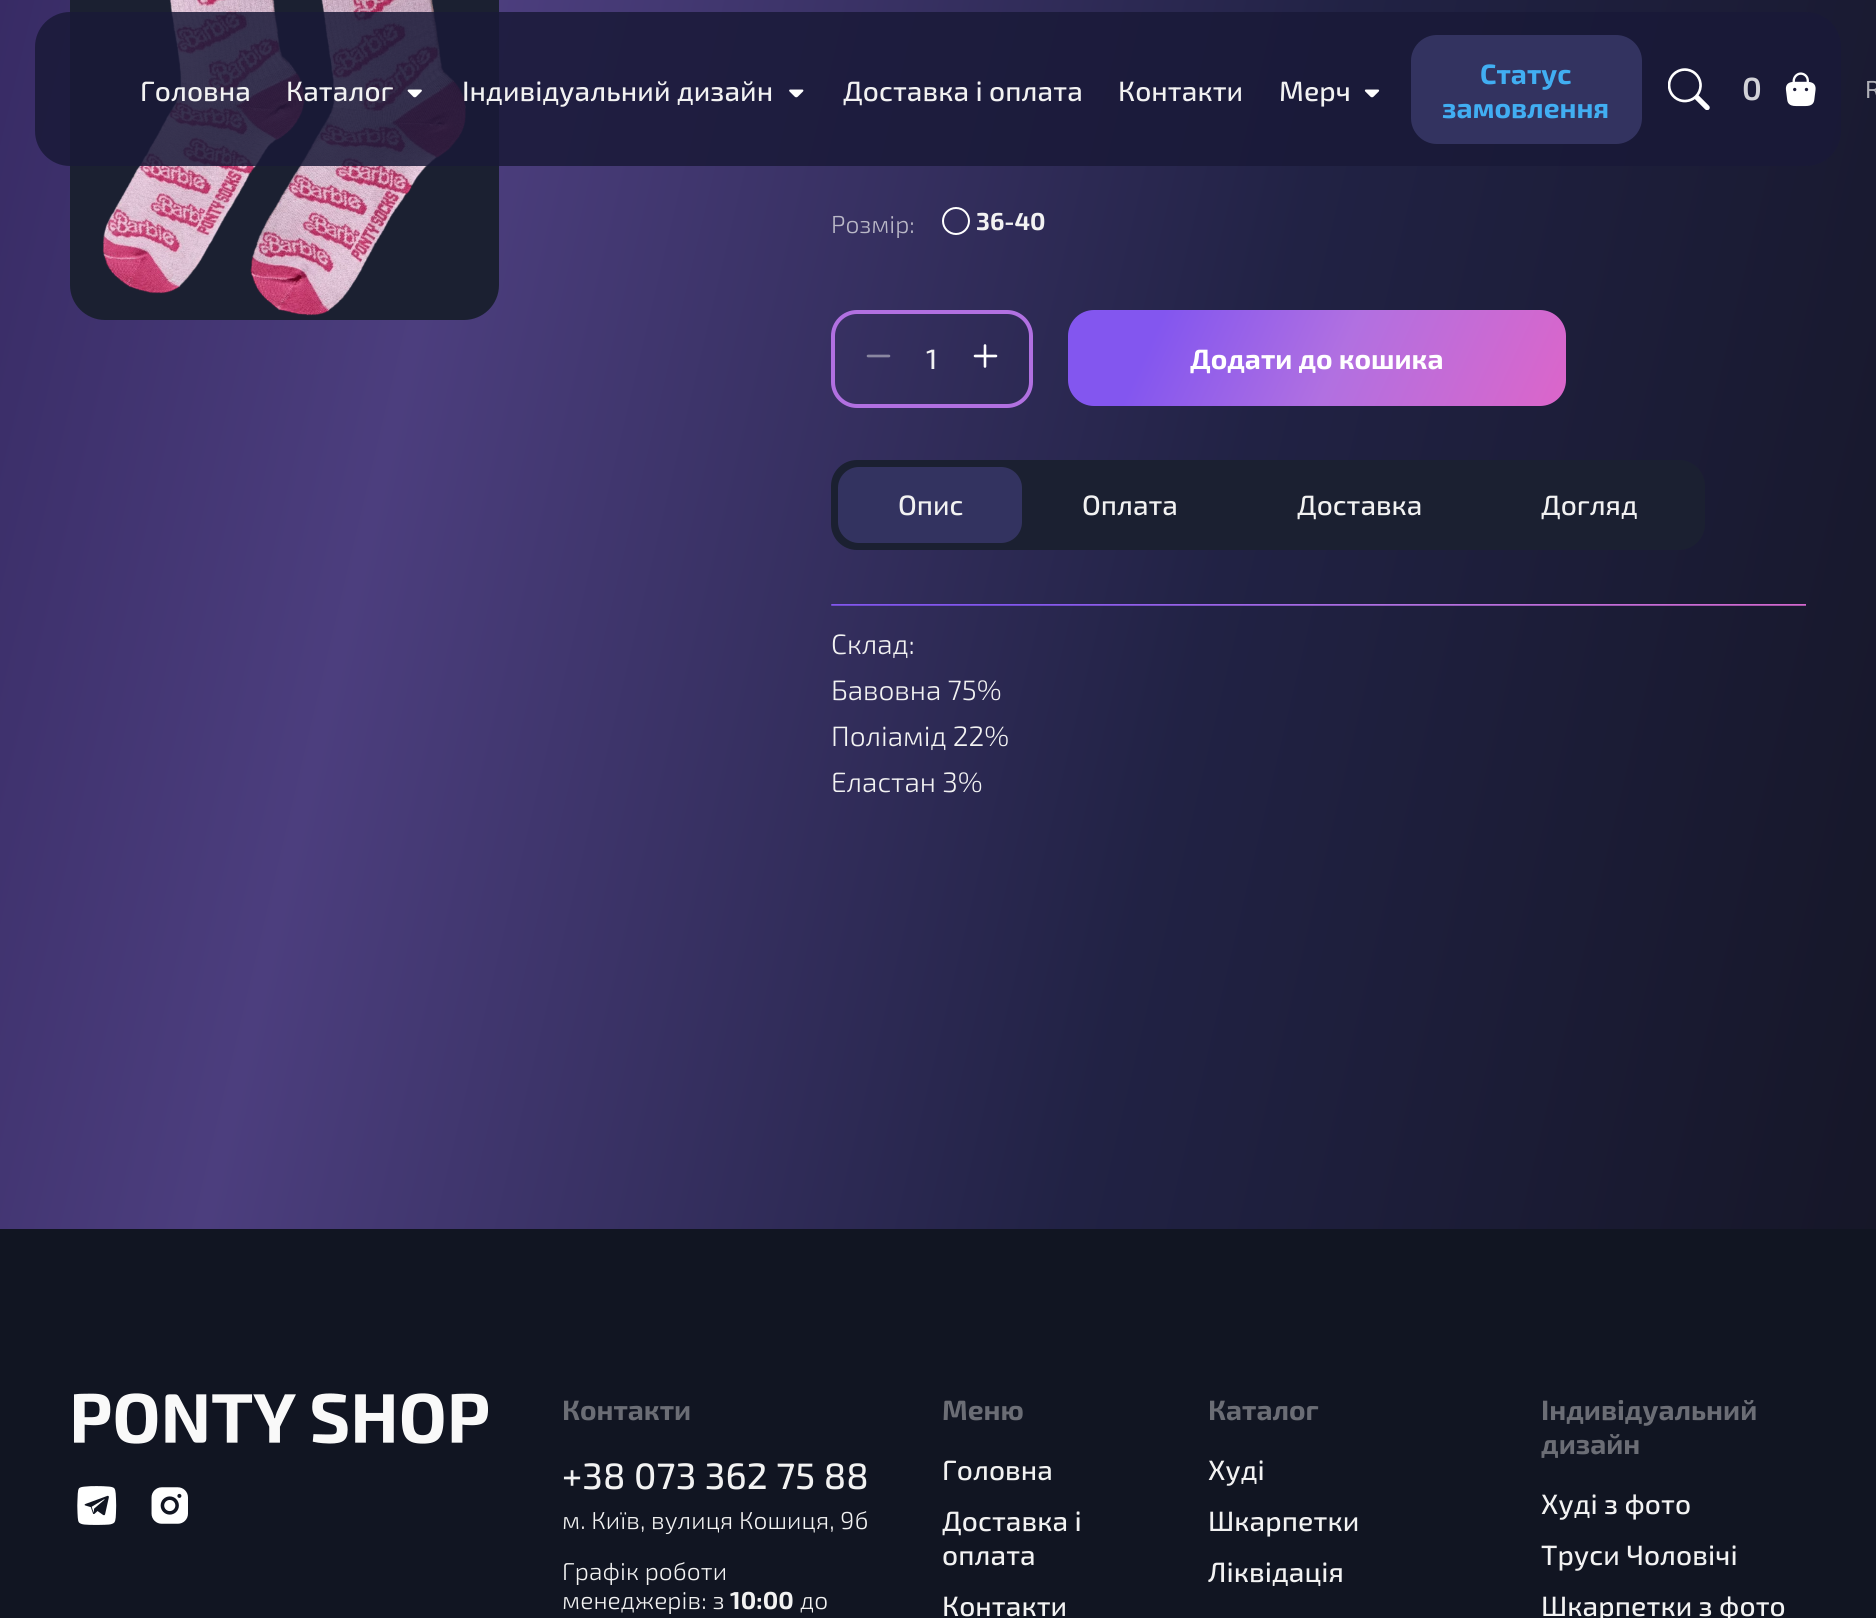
#include <cairo.h>
#include <math.h>
#include <stddef.h>

typedef struct { const char *family; double size; int italic, bold; unsigned color; } style_t;
static cairo_t *ctx;

static void ink(unsigned color) {
    cairo_set_source_rgb(ctx, (color >> 16) / 255.0, (color >> 8 & 255) / 255.0, (color & 255) / 255.0);
}

static void write(double x, double y, const char *s, const style_t *st) {
    cairo_select_font_face(ctx, st->family, st->italic ? CAIRO_FONT_SLANT_ITALIC : CAIRO_FONT_SLANT_NORMAL,
        st->bold ? CAIRO_FONT_WEIGHT_BOLD : CAIRO_FONT_WEIGHT_NORMAL);
    cairo_set_font_size(ctx, st->size);
    ink(st->color);
    cairo_move_to(ctx, x, y);
    cairo_show_text(ctx, s);
}

static void write_spaced(double x, double y, const char *s, double letter, double word) {
    cairo_move_to(ctx, x, y);
    while (*s) {
        char ch[5] = {0};
        int n = 0;
        do ch[n++] = *s++; while ((*s & 0xC0) == 0x80);
        cairo_show_text(ctx, ch);
        cairo_rel_move_to(ctx, letter + word * (*ch == ' '), 0);
    }
}

static void block(double x, double y, double w, double h, unsigned color) {
    ink(color);
    cairo_rectangle(ctx, x, y, w, h);
    cairo_fill(ctx);
}

static void round_path(double x, double y, double w, double h, double r) {
    cairo_new_sub_path(ctx);
    cairo_arc(ctx, x + w - r, y + h - r, r, 0, M_PI / 2);
    cairo_arc(ctx, x + r, y + h - r, r, M_PI / 2, M_PI);
    cairo_arc(ctx, x + r, y + r, r, M_PI, 1.5 * M_PI);
    cairo_arc(ctx, x + w - r, y + r, r, 1.5 * M_PI, 2 * M_PI);
    cairo_close_path(ctx);
}

static void paste(const char *path, double x, double y, double w, double h) {
    cairo_surface_t *image = cairo_image_surface_create_from_png(path);
    cairo_save(ctx);
    cairo_set_source_surface(ctx, image, x, y);
    cairo_rectangle(ctx, x, y, w, h);
    cairo_fill(ctx);
    cairo_restore(ctx);
    cairo_surface_destroy(image);
}

static const style_t s1 = {"Exo 2", 28, 0, 1, 0x41aef2};
static const style_t s2 = {"Exo 2 SemiBold", 32, 0, 0, 0xd1d1d7};
static const style_t s3 = {"Exo 2 Light", 24.5, 0, 0, 0xbab8c7};
static const style_t s4 = {"Exo 2", 24.5, 0, 1, 0xf2f2f2};
static const style_t s5 = {"Exo 2 Medium", 28, 0, 0, 0xf2f2f2};
static const style_t s6 = {"Exo 2", 28, 0, 1, 0xffffff};
static const style_t s7 = {"Exo 2 Light", 28, 0, 0, 0xf2f2f2};
static const style_t s8 = {"Exo 2", 28, 0, 1, 0x6b6d75};

int main(void) {
    cairo_surface_t *surface = cairo_image_surface_create(CAIRO_FORMAT_RGB24, 1876, 1618);
    ctx = cairo_create(surface);
    cairo_font_options_t *options = cairo_font_options_create();
    cairo_font_options_set_hint_metrics(options, CAIRO_HINT_METRICS_OFF);
    cairo_font_options_set_hint_style(options, CAIRO_HINT_STYLE_NONE);
    cairo_set_font_options(ctx, options);
    cairo_set_miter_limit(ctx, 4);
    cairo_pattern_t *gradient;
    ink(0xffffff);
    cairo_paint(ctx);
    gradient = cairo_pattern_create_linear(-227, 155, 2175, 723);
    cairo_pattern_add_color_stop_rgba(gradient, 0, 0.188, 0.141, 0.357, 1);
    cairo_pattern_add_color_stop_rgba(gradient, 0.27, 0.298, 0.243, 0.494, 1);
    cairo_pattern_add_color_stop_rgba(gradient, 0.61, 0.129, 0.133, 0.267, 1);
    cairo_pattern_add_color_stop_rgba(gradient, 1, 0.075, 0.078, 0.133, 1);
    cairo_set_source(ctx, gradient);
    cairo_pattern_destroy(gradient);
    cairo_rectangle(ctx, 0, 0, 1876, 1229);
    cairo_fill(ctx);
    ink(0x1b2031);
    round_path(70, -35, 429, 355, 35);
    cairo_fill(ctx);
    paste("pic6.png", 102, 0, 364, 316);
    cairo_set_source_rgba(ctx, 0.098, 0.098, 0.22, 0.85);
    round_path(35, 12, 1806, 154, 35);
    cairo_fill(ctx);
    cairo_select_font_face(ctx, "Exo 2 Medium", CAIRO_FONT_SLANT_NORMAL, CAIRO_FONT_WEIGHT_NORMAL);
    cairo_set_font_size(ctx, 28);
    ink(0xf2f2f2);
    write_spaced(140, 101, "Головна", 0.1, 0);
    write_spaced(286, 101, "Каталог", 0.1, 0);
    paste("pic1.png", 407, 89, 15, 9);
    write_spaced(462, 101, "Індивідуальний дизайн", 0.1, 0);
    paste("pic2.png", 789, 89, 15, 9);
    write_spaced(843, 101, "Доставка і оплата", 0.1, 0);
    write_spaced(1118, 101, "Контакти", 0.1, 0);
    write_spaced(1279, 101, "Мерч", 0.1, 0);
    paste("pic3.png", 1364, 89, 16, 9);
    ink(0x333360);
    round_path(1411, 35, 231, 109, 26);
    cairo_fill(ctx);
    write(1480, 84, "Статус", &s1);
    write(1442, 118, "замовлення", &s1);
    paste("pic4.png", 1668, 68, 42, 42);
    write(1742, 100, "0", &s2);
    paste("pic5.png", 1785, 72, 31, 35);
    cairo_select_font_face(ctx, "Exo 2", CAIRO_FONT_SLANT_NORMAL, CAIRO_FONT_WEIGHT_NORMAL);
    cairo_set_font_size(ctx, 24.5);
    ink(0xb0b0b7);
    write_spaced(1865, 98, "R", 0.1, 0);
    write(831, 233, "Розмір:", &s3);
    cairo_new_path(ctx);
    cairo_arc(ctx, 956, 221, 13, 0, 2 * M_PI);
    ink(0xffffff);
    cairo_stroke(ctx);
    write(976, 230, "36-40", &s4);
    round_path(833, 312, 198, 94, 24);
    ink(0xb170e1);
    cairo_set_line_width(ctx, 4);
    cairo_stroke(ctx);
    cairo_new_path(ctx);
    cairo_move_to(ctx, 868, 356);
    cairo_line_to(ctx, 889, 356);
    ink(0x8a87a1);
    cairo_set_line_width(ctx, 2.6);
    cairo_set_line_cap(ctx, CAIRO_LINE_CAP_ROUND);
    cairo_set_line_join(ctx, CAIRO_LINE_JOIN_ROUND);
    cairo_stroke(ctx);
    write(926, 369, "1", &s5);
    cairo_new_path(ctx);
    cairo_move_to(ctx, 975, 356);
    cairo_line_to(ctx, 996, 356);
    cairo_move_to(ctx, 985, 366.5);
    cairo_line_to(ctx, 985, 345.5);
    ink(0xffffff);
    cairo_stroke(ctx);
    gradient = cairo_pattern_create_linear(1092, 256, 1542, 460);
    cairo_pattern_add_color_stop_rgba(gradient, 0.18, 0.514, 0.337, 0.937, 1);
    cairo_pattern_add_color_stop_rgba(gradient, 0.54, 0.694, 0.439, 0.882, 1);
    cairo_pattern_add_color_stop_rgba(gradient, 0.97, 0.851, 0.4, 0.796, 1);
    cairo_set_source(ctx, gradient);
    cairo_pattern_destroy(gradient);
    round_path(1068, 310, 498, 96, 26);
    cairo_fill(ctx);
    write(1190, 369, "Додати до кошика", &s6);
    ink(0x1b2031);
    round_path(831, 460, 874, 90, 26);
    cairo_fill(ctx);
    ink(0x333360);
    round_path(838, 467, 184, 76, 21);
    cairo_fill(ctx);
    write(898, 515, "Опис", &s5);
    write(1082, 515, "Оплата", &s5);
    write(1297, 515, "Доставка", &s5);
    write(1541, 515, "Догляд", &s5);
    paste("pic7.png", 831, 604, 975, 2);
    write(831, 654, "Склад:", &s7);
    write(831, 700, "Бавовна 75%", &s7);
    write(831, 746, "Поліамід 22%", &s7);
    write(831, 792, "Еластан 3%", &s7);
    block(0, 1229, 1876, 389, 0x111522);
    paste("pic8.png", 74, 1393, 414, 51);
    paste("pic9.png", 77, 1486, 40, 39);
    paste("pic10.png", 151, 1487, 37, 37);
    write(562, 1420, "Контакти", &s8);
    cairo_select_font_face(ctx, "Exo 2 Medium", CAIRO_FONT_SLANT_NORMAL, CAIRO_FONT_WEIGHT_NORMAL);
    cairo_set_font_size(ctx, 36.75);
    ink(0xf2f2f2);
    write_spaced(562, 1489, "+38 073 362 75 88", 0.2, 0);
    cairo_select_font_face(ctx, "Exo 2 Light", CAIRO_FONT_SLANT_NORMAL, CAIRO_FONT_WEIGHT_NORMAL);
    cairo_set_font_size(ctx, 24.5);
    write_spaced(562, 1529, "м. Київ, вулиця Кошиця, 9б", 0.1, 0);
    write_spaced(562, 1580, "Графік роботи", 0.1, 0);
    write_spaced(562, 1609, "менеджерів: з", 0.1, 0);
    cairo_select_font_face(ctx, "Exo 2", CAIRO_FONT_SLANT_NORMAL, CAIRO_FONT_WEIGHT_BOLD);
    write_spaced(730, 1609, "10:00", 0.1, 0);
    cairo_select_font_face(ctx, "Exo 2 Light", CAIRO_FONT_SLANT_NORMAL, CAIRO_FONT_WEIGHT_NORMAL);
    write_spaced(800, 1609, "до", 0.1, 0);
    write(942, 1420, "Меню", &s8);
    cairo_select_font_face(ctx, "Exo 2 Medium", CAIRO_FONT_SLANT_NORMAL, CAIRO_FONT_WEIGHT_NORMAL);
    ink(0xf2f2f2);
    write_spaced(942, 1480, "Головна", 0.1, 0);
    write_spaced(942, 1531, "Доставка і", 0.1, 0);
    write_spaced(942, 1565, "оплата", 0.1, 0);
    write_spaced(942, 1616, "Контакти", 0.1, 0);
    write(1208, 1420, "Каталог", &s8);
    cairo_select_font_face(ctx, "Exo 2 Medium", CAIRO_FONT_SLANT_NORMAL, CAIRO_FONT_WEIGHT_NORMAL);
    ink(0xf2f2f2);
    write_spaced(1208, 1480, "Худі", 0.1, 0);
    write_spaced(1208, 1531, "Шкарпетки", 0.1, 0);
    write_spaced(1208, 1582, "Ліквідація", 0.1, 0);
    write(1541, 1420, "Індивідуальний", &s8);
    write(1541, 1454, "дизайн", &s8);
    cairo_select_font_face(ctx, "Exo 2 Medium", CAIRO_FONT_SLANT_NORMAL, CAIRO_FONT_WEIGHT_NORMAL);
    ink(0xf2f2f2);
    write_spaced(1541, 1514, "Худі з фото", 0.1, 0);
    write_spaced(1541, 1565, "Труси Чоловічі", 0.1, 0);
    write_spaced(1541, 1616, "Шкарпетки з фото", 0.1, 0);
    cairo_surface_write_to_png(surface, "screenshot.png");
    cairo_font_options_destroy(options);
    cairo_destroy(ctx);
    cairo_surface_destroy(surface);
    return 0;
}
